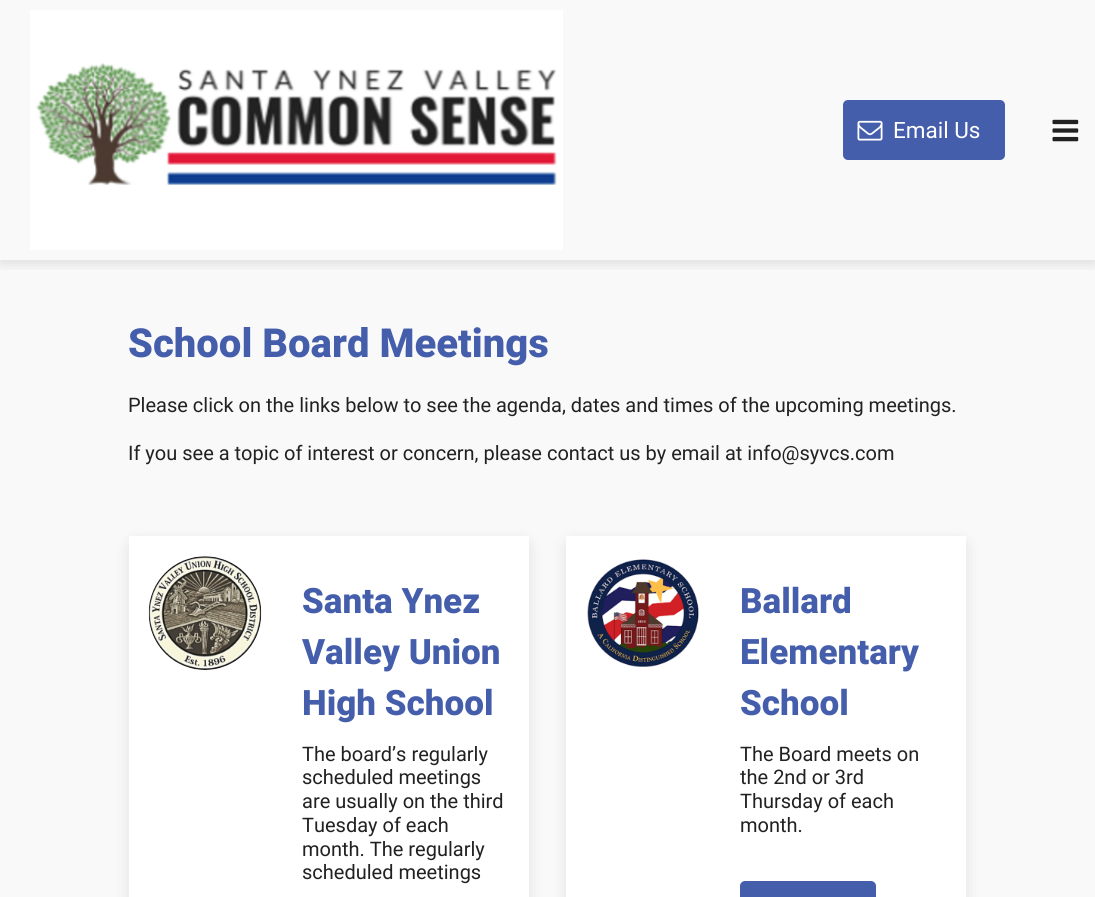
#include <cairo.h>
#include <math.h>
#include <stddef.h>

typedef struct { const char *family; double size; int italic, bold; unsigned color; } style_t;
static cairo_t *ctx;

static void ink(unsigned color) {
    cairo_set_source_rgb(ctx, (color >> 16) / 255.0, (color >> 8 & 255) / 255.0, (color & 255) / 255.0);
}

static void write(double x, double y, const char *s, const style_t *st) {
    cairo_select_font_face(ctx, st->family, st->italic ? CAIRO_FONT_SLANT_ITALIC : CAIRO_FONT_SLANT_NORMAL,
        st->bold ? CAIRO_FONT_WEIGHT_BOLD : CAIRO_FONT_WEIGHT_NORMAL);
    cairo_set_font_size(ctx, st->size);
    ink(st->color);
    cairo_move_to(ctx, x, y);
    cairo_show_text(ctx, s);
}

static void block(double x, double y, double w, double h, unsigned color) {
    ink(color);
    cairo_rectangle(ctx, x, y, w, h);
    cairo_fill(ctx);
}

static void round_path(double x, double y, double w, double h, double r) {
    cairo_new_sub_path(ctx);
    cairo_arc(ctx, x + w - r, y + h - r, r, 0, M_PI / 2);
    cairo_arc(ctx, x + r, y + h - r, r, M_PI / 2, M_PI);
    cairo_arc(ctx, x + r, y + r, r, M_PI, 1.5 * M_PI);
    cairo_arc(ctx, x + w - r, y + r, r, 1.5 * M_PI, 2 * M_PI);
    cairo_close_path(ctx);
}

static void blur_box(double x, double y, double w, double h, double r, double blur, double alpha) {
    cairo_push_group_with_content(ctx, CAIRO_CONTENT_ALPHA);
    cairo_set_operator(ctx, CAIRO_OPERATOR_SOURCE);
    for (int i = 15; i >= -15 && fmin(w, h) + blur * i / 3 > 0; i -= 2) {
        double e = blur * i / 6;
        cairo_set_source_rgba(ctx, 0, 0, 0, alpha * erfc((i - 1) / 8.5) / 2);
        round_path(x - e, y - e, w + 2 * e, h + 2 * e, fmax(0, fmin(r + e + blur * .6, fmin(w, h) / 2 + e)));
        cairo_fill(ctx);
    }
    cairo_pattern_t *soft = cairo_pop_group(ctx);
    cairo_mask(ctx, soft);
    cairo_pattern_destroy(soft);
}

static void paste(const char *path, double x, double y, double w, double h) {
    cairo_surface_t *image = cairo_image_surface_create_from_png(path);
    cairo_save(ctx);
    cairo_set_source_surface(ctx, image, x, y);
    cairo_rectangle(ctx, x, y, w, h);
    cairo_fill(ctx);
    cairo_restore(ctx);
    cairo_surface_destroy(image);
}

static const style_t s1 = {"Roboto", 22.5, 0, 0, 0xffffff};
static const style_t s2 = {"Heebo ExtraBold", 40, 0, 0, 0x455eab};
static const style_t s3 = {"Roboto", 20, 0, 0, 0x212121};
static const style_t s4 = {"Heebo ExtraBold", 35, 0, 0, 0x455eab};

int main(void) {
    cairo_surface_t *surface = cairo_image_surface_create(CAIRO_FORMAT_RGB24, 1095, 897);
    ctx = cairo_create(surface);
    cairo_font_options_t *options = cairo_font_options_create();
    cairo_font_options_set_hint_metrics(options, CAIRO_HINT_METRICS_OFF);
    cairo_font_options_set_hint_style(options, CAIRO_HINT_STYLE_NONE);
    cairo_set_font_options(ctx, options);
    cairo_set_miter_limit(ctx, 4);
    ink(0xf9f9f9);
    cairo_paint(ctx);
    cairo_save(ctx);
    cairo_rectangle(ctx, 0, 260, 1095, 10);
    cairo_clip(ctx);
    ink(0x000000);
    blur_box(0, 3, 1095, 260, 0, 7.5, 0.12);
    cairo_restore(ctx);
    paste("pic1.png", 30, 10, 533, 240);
    ink(0x455eab);
    round_path(843, 100, 162, 60, 5);
    cairo_fill(ctx);
    paste("pic2.png", 857, 120, 26, 21);
    write(893, 138, "Email Us", &s1);
    paste("pic3.png", 1052, 119, 27, 23);
    write(128, 357, "School Board Meetings", &s2);
    write(128, 412, "Please click on the links below to see the agenda, dates and times of the upcoming meetings.", &s3);
    write(128, 460, "If you see a topic of interest or concern, please contact us by email at info@syvcs.com", &s3);
    ink(0x000000);
    blur_box(134, 546, 390, 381, 0, 10, 0.16);
    block(129, 536, 400, 361, 0xffffff);
    paste("pic4.png", 148, 556, 114, 114);
    write(302, 613, "Santa Ynez", &s4);
    write(302, 664, "Valley Union", &s4);
    write(302, 715, "High School", &s4);
    write(302, 761, "The board’s regularly", &s3);
    write(302, 784, "scheduled meetings", &s3);
    write(302, 808, "are usually on the third", &s3);
    write(302, 832, "Tuesday of each", &s3);
    write(302, 856, "month. The regularly", &s3);
    write(302, 879, "scheduled meetings", &s3);
    ink(0x000000);
    blur_box(571, 546, 390, 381, 0, 10, 0.16);
    block(566, 536, 400, 361, 0xffffff);
    paste("pic5.png", 587, 559, 112, 108);
    write(740, 613, "Ballard", &s4);
    write(740, 664, "Elementary", &s4);
    write(740, 715, "School", &s4);
    write(740, 761, "The Board meets on", &s3);
    write(740, 784, "the 2nd or 3rd", &s3);
    write(740, 808, "Thursday of each", &s3);
    write(740, 832, "month.", &s3);
    ink(0x455eab);
    round_path(740, 881, 136, 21, 5);
    cairo_fill(ctx);
    cairo_surface_write_to_png(surface, "screenshot.png");
    cairo_font_options_destroy(options);
    cairo_destroy(ctx);
    cairo_surface_destroy(surface);
    return 0;
}
